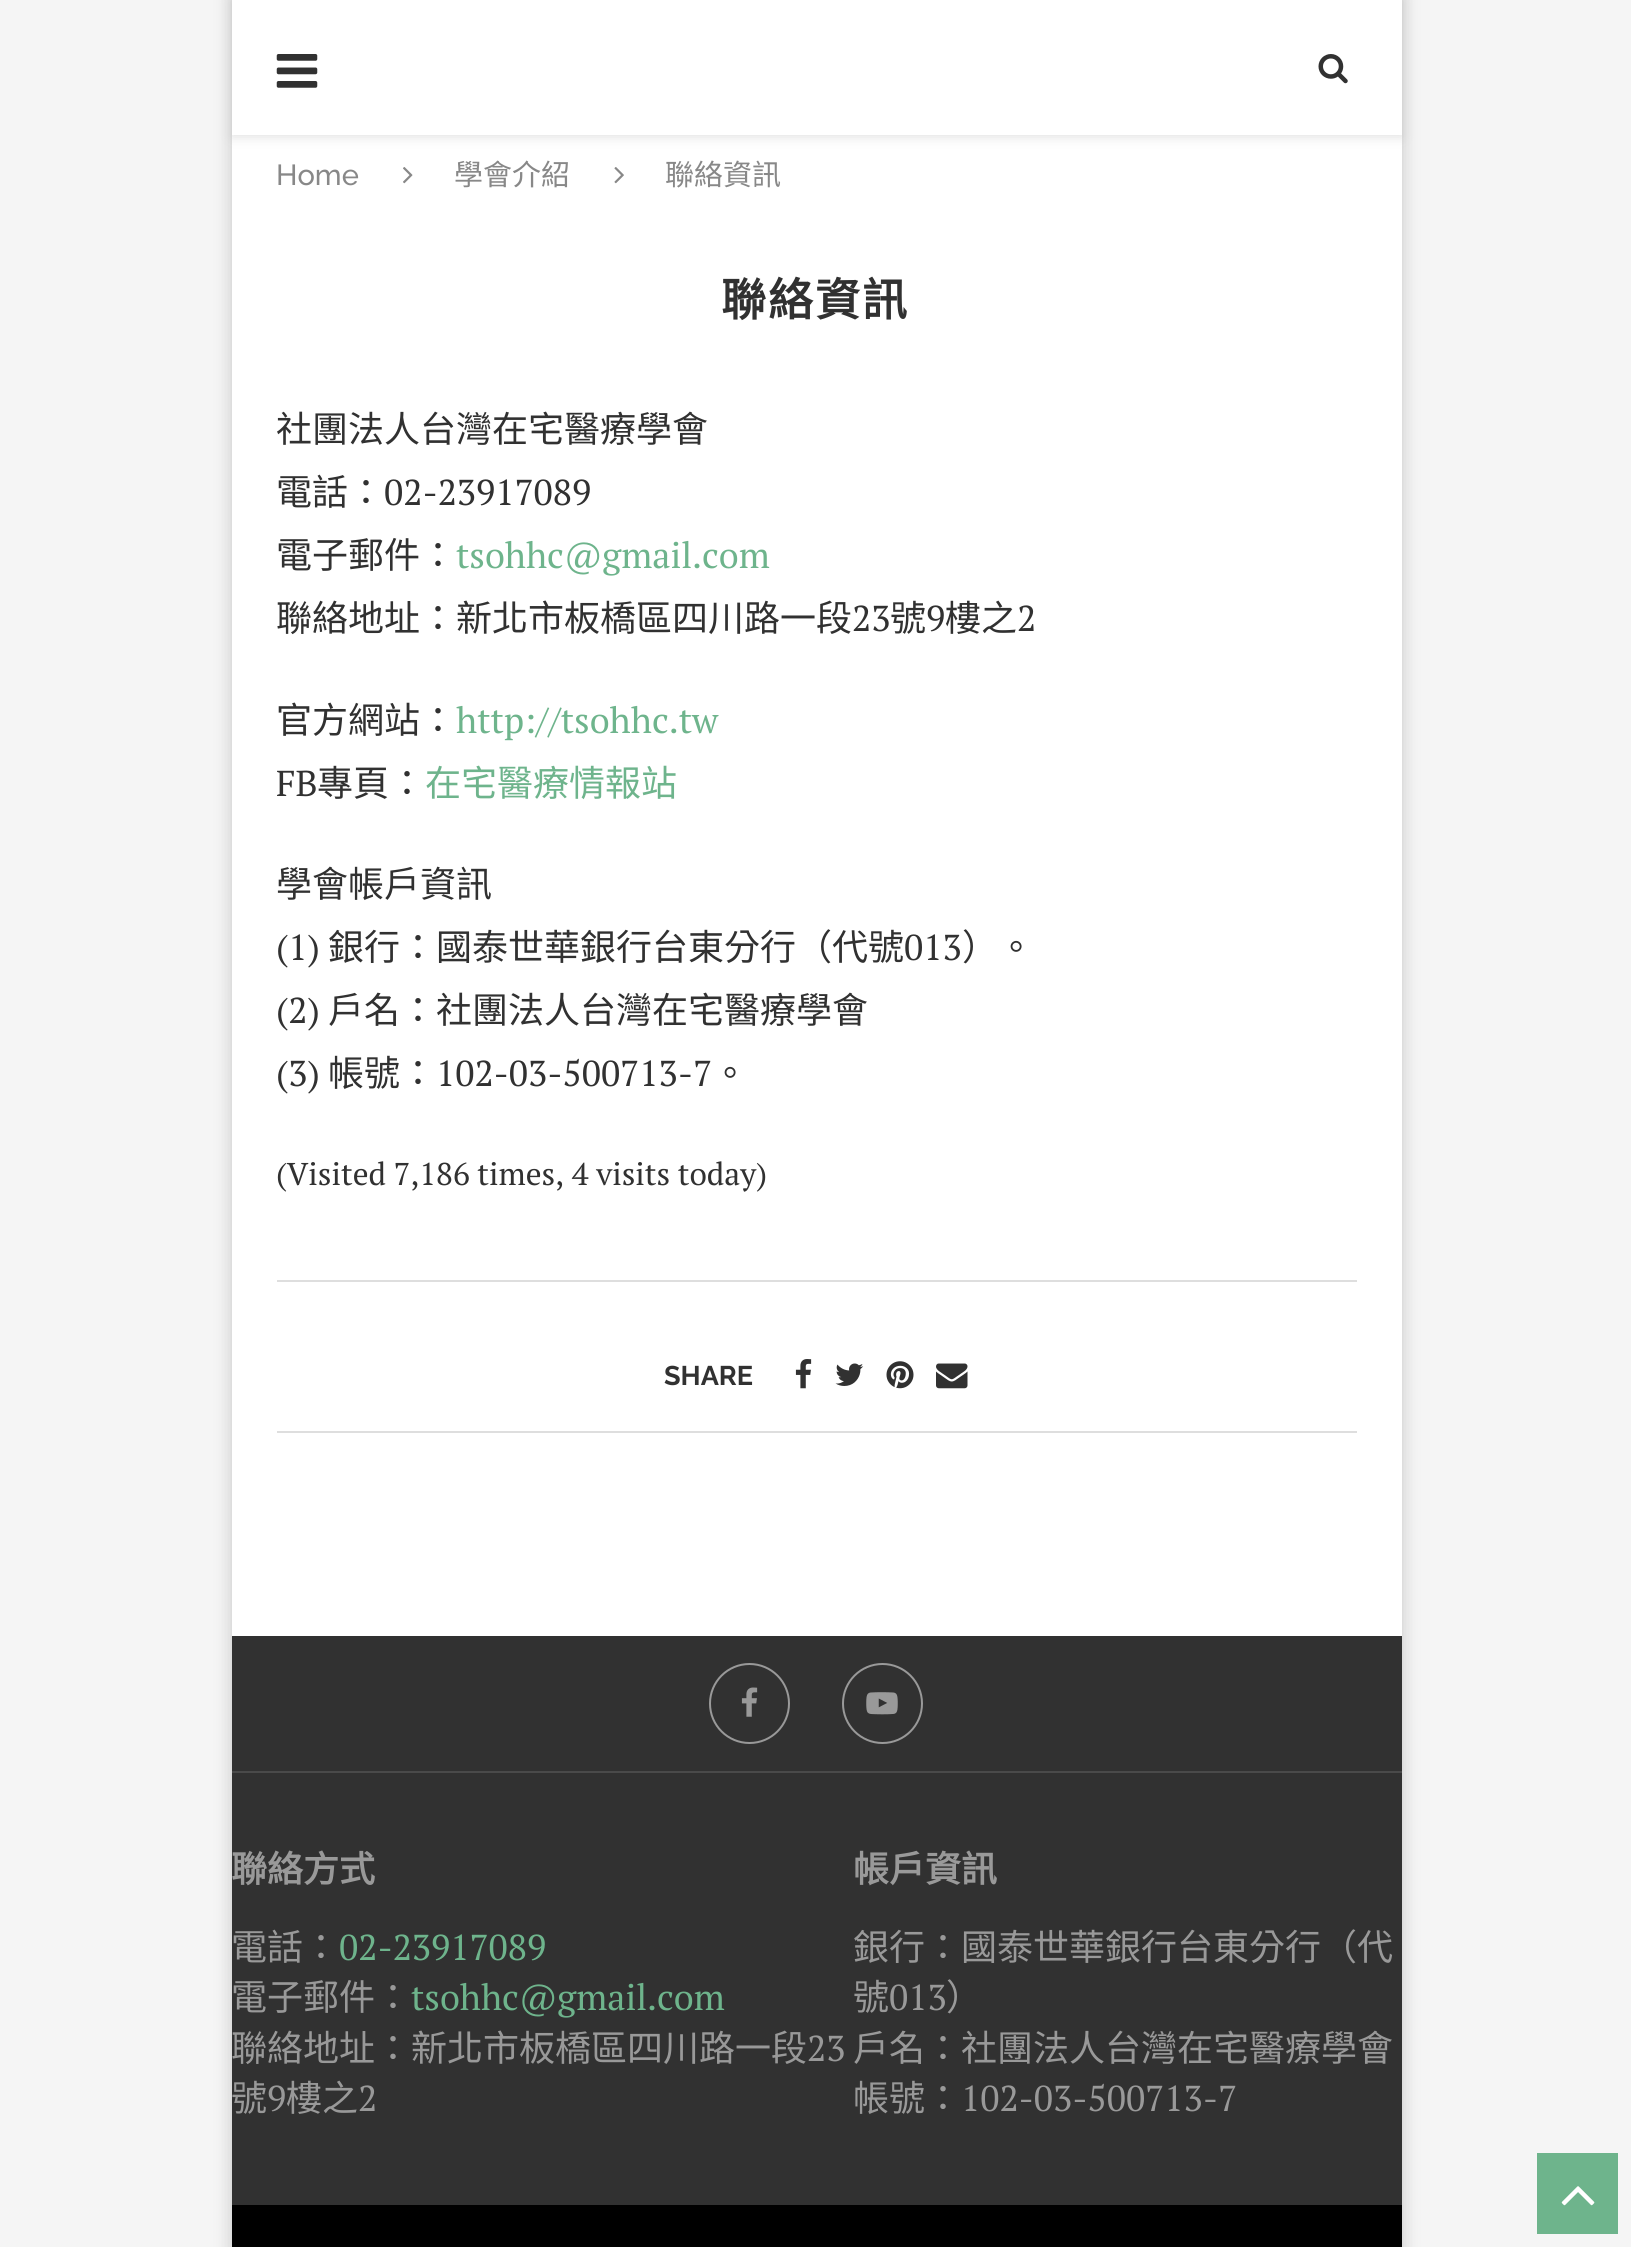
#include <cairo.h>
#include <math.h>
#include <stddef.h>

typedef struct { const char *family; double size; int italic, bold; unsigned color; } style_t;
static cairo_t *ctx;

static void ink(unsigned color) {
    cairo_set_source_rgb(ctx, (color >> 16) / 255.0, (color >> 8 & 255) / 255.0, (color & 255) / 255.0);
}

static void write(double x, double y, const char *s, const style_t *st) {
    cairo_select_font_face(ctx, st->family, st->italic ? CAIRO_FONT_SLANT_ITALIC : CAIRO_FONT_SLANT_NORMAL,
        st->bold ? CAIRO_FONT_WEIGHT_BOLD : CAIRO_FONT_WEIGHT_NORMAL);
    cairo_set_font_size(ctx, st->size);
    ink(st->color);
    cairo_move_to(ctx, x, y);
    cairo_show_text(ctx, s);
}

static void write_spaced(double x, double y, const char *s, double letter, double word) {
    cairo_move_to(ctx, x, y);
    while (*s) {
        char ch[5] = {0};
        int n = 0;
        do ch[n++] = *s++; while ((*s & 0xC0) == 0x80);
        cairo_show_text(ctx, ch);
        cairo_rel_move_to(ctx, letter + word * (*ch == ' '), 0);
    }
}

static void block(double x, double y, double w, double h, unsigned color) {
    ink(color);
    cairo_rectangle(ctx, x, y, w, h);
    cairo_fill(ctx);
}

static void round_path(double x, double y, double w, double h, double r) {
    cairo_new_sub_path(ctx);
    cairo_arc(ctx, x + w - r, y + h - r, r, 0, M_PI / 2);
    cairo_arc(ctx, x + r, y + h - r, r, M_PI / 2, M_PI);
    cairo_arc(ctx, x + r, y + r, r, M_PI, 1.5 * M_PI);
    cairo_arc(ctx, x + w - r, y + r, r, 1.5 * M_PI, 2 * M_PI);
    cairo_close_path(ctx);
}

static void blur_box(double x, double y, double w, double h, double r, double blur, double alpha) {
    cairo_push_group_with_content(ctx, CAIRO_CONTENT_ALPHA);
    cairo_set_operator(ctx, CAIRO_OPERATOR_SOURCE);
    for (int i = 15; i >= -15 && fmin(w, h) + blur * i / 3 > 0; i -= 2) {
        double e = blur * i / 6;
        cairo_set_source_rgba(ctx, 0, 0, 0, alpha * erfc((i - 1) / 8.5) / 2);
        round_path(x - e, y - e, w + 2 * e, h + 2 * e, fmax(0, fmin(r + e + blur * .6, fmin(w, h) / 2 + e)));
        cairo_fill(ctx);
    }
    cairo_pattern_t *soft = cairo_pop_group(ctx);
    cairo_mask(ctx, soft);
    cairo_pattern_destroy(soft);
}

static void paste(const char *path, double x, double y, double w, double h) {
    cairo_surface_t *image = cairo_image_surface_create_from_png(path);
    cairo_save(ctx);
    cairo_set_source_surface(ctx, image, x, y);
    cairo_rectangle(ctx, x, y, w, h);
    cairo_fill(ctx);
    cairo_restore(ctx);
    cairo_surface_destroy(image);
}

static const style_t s1 = {"Raleway Medium", 29, 0, 0, 0x888888};
static const style_t s2 = {"Noto Sans CJK TC", 29, 0, 0, 0x888888};
static const style_t s3 = {"Noto Sans CJK TC", 36, 0, 0, 0x313131};
static const style_t s4 = {"PT Serif", 36, 0, 0, 0x313131};
static const style_t s5 = {"PT Serif", 36, 0, 0, 0x6eb48c};
static const style_t s6 = {"Noto Sans CJK TC", 36, 0, 0, 0x6eb48c};
static const style_t s7 = {"PT Serif", 31.5, 0, 0, 0x313131};
static const style_t s8 = {"Raleway", 27, 0, 1, 0x313131};
static const style_t s9 = {"Noto Sans CJK TC", 36, 0, 1, 0x999999};
static const style_t s10 = {"Noto Sans CJK TC", 36, 0, 0, 0x999999};
static const style_t s11 = {"PT Serif", 36, 0, 0, 0x999999};

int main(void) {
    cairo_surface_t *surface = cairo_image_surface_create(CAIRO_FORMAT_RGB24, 1631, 2247);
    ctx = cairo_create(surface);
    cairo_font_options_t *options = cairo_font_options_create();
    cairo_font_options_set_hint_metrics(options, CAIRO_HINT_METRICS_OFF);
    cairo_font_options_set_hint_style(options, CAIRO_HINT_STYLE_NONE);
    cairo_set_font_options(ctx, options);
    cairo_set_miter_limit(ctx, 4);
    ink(0xf5f5f5);
    cairo_paint(ctx);
    ink(0x000000);
    blur_box(232, -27, 1170, 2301, 0, 9, 0.2);
    block(232, 135, 1170, 1501, 0xffffff);
    ink(0xbebebe);
    blur_box(232, 2, 1170, 135, 0, 5.5, 0.46);
    block(232, 0, 1170, 135, 0xffffff);
    paste("pic1.png", 276, 54, 42, 34);
    paste("pic2.png", 1318, 54, 30, 30);
    write(276, 185, "Home", &s1);
    paste("pic3.png", 403, 167, 10, 17);
    write(454, 185, "學會介紹", &s2);
    paste("pic4.png", 614, 167, 10, 17);
    write(665, 185, "聯絡資訊", &s2);
    cairo_select_font_face(ctx, "Noto Sans CJK TC", CAIRO_FONT_SLANT_NORMAL, CAIRO_FONT_WEIGHT_BOLD);
    cairo_set_font_size(ctx, 45);
    ink(0x313131);
    write_spaced(721, 316, "聯絡資訊", 2, 0);
    write(276, 442, "社團法人台灣在宅醫療學會", &s3);
    write(276, 505, "電話：", &s3);
    write(384, 505, "02-23917089", &s4);
    write(276, 568, "電子郵件：", &s3);
    write(456, 568, "tsohhc@gmail.com", &s5);
    write(276, 631, "聯絡地址：新北市板橋區四川路一段", &s3);
    write(852, 631, "23", &s4);
    write(890, 631, "號", &s3);
    write(926, 631, "9", &s4);
    write(945, 631, "樓之", &s3);
    write(1017, 631, "2", &s4);
    write(276, 733, "官方網站：", &s3);
    write(456, 733, "http://tsohhc.tw", &s5);
    write(276, 796, "FB", &s4);
    write(317, 796, "專頁：", &s3);
    write(425, 796, "在宅醫療情報站", &s6);
    write(276, 897, "學會帳戶資訊", &s3);
    write(276, 960, "(1)", &s4);
    write(328, 960, "銀行：國泰世華銀行台東分行（代號", &s3);
    write(904, 960, "013", &s4);
    write(962, 960, "）。", &s3);
    write(276, 1023, "(2)", &s4);
    write(328, 1023, "戶名：社團法人台灣在宅醫療學會", &s3);
    write(276, 1086, "(3)", &s4);
    write(328, 1086, "帳號：", &s3);
    write(436, 1086, "102-03-500713-7", &s4);
    write(712, 1086, "。", &s3);
    write(276, 1185, "(Visited 7,186 times, 4 visits today)", &s7);
    block(277, 1280, 1080, 2, 0xdedede);
    block(277, 1431, 1080, 2, 0xdedede);
    write(664, 1385, "SHARE", &s8);
    paste("pic5.png", 795, 1359, 17, 30);
    paste("pic6.png", 835, 1363, 29, 23);
    paste("pic7.png", 886, 1361, 28, 28);
    paste("pic8.png", 936, 1363, 32, 26);
    block(232, 1636, 1170, 569, 0x313131);
    block(232, 1771, 1170, 2, 0x4a4a4a);
    cairo_arc(ctx, 749.5, 1703.5, 39.5, 0, 2 * M_PI);
    ink(0x999999);
    cairo_stroke(ctx);
    paste("pic9.png", 741, 1687, 17, 30);
    cairo_arc(ctx, 882.5, 1703.5, 39.5, 0, 2 * M_PI);
    cairo_stroke(ctx);
    paste("pic10.png", 866, 1692, 32, 23);
    write(231, 1882, "聯絡方式", &s9);
    write(231, 1960, "電話：", &s10);
    write(339, 1960, "02-23917089", &s5);
    write(231, 2010, "電子郵件：", &s10);
    write(411, 2010, "tsohhc@gmail.com", &s5);
    write(231, 2061, "聯絡地址：新北市板橋區四川路一段", &s10);
    write(807, 2061, "23", &s11);
    write(231, 2111, "號", &s10);
    write(267, 2111, "9", &s11);
    write(286, 2111, "樓之", &s10);
    write(358, 2111, "2", &s11);
    write(853, 1882, "帳戶資訊", &s9);
    write(853, 1960, "銀行：國泰世華銀行台東分行（代", &s10);
    write(853, 2010, "號", &s10);
    write(889, 2010, "013", &s11);
    write(946, 2010, "）", &s10);
    write(853, 2061, "戶名：社團法人台灣在宅醫療學會", &s10);
    write(853, 2111, "帳號：", &s10);
    write(961, 2111, "102-03-500713-7", &s11);
    block(232, 2205, 1170, 42, 0x000000);
    block(1537, 2153, 81, 81, 0x6eb48c);
    paste("pic11.png", 1561, 2186, 34, 20);
    cairo_surface_write_to_png(surface, "screenshot.png");
    cairo_font_options_destroy(options);
    cairo_destroy(ctx);
    cairo_surface_destroy(surface);
    return 0;
}
